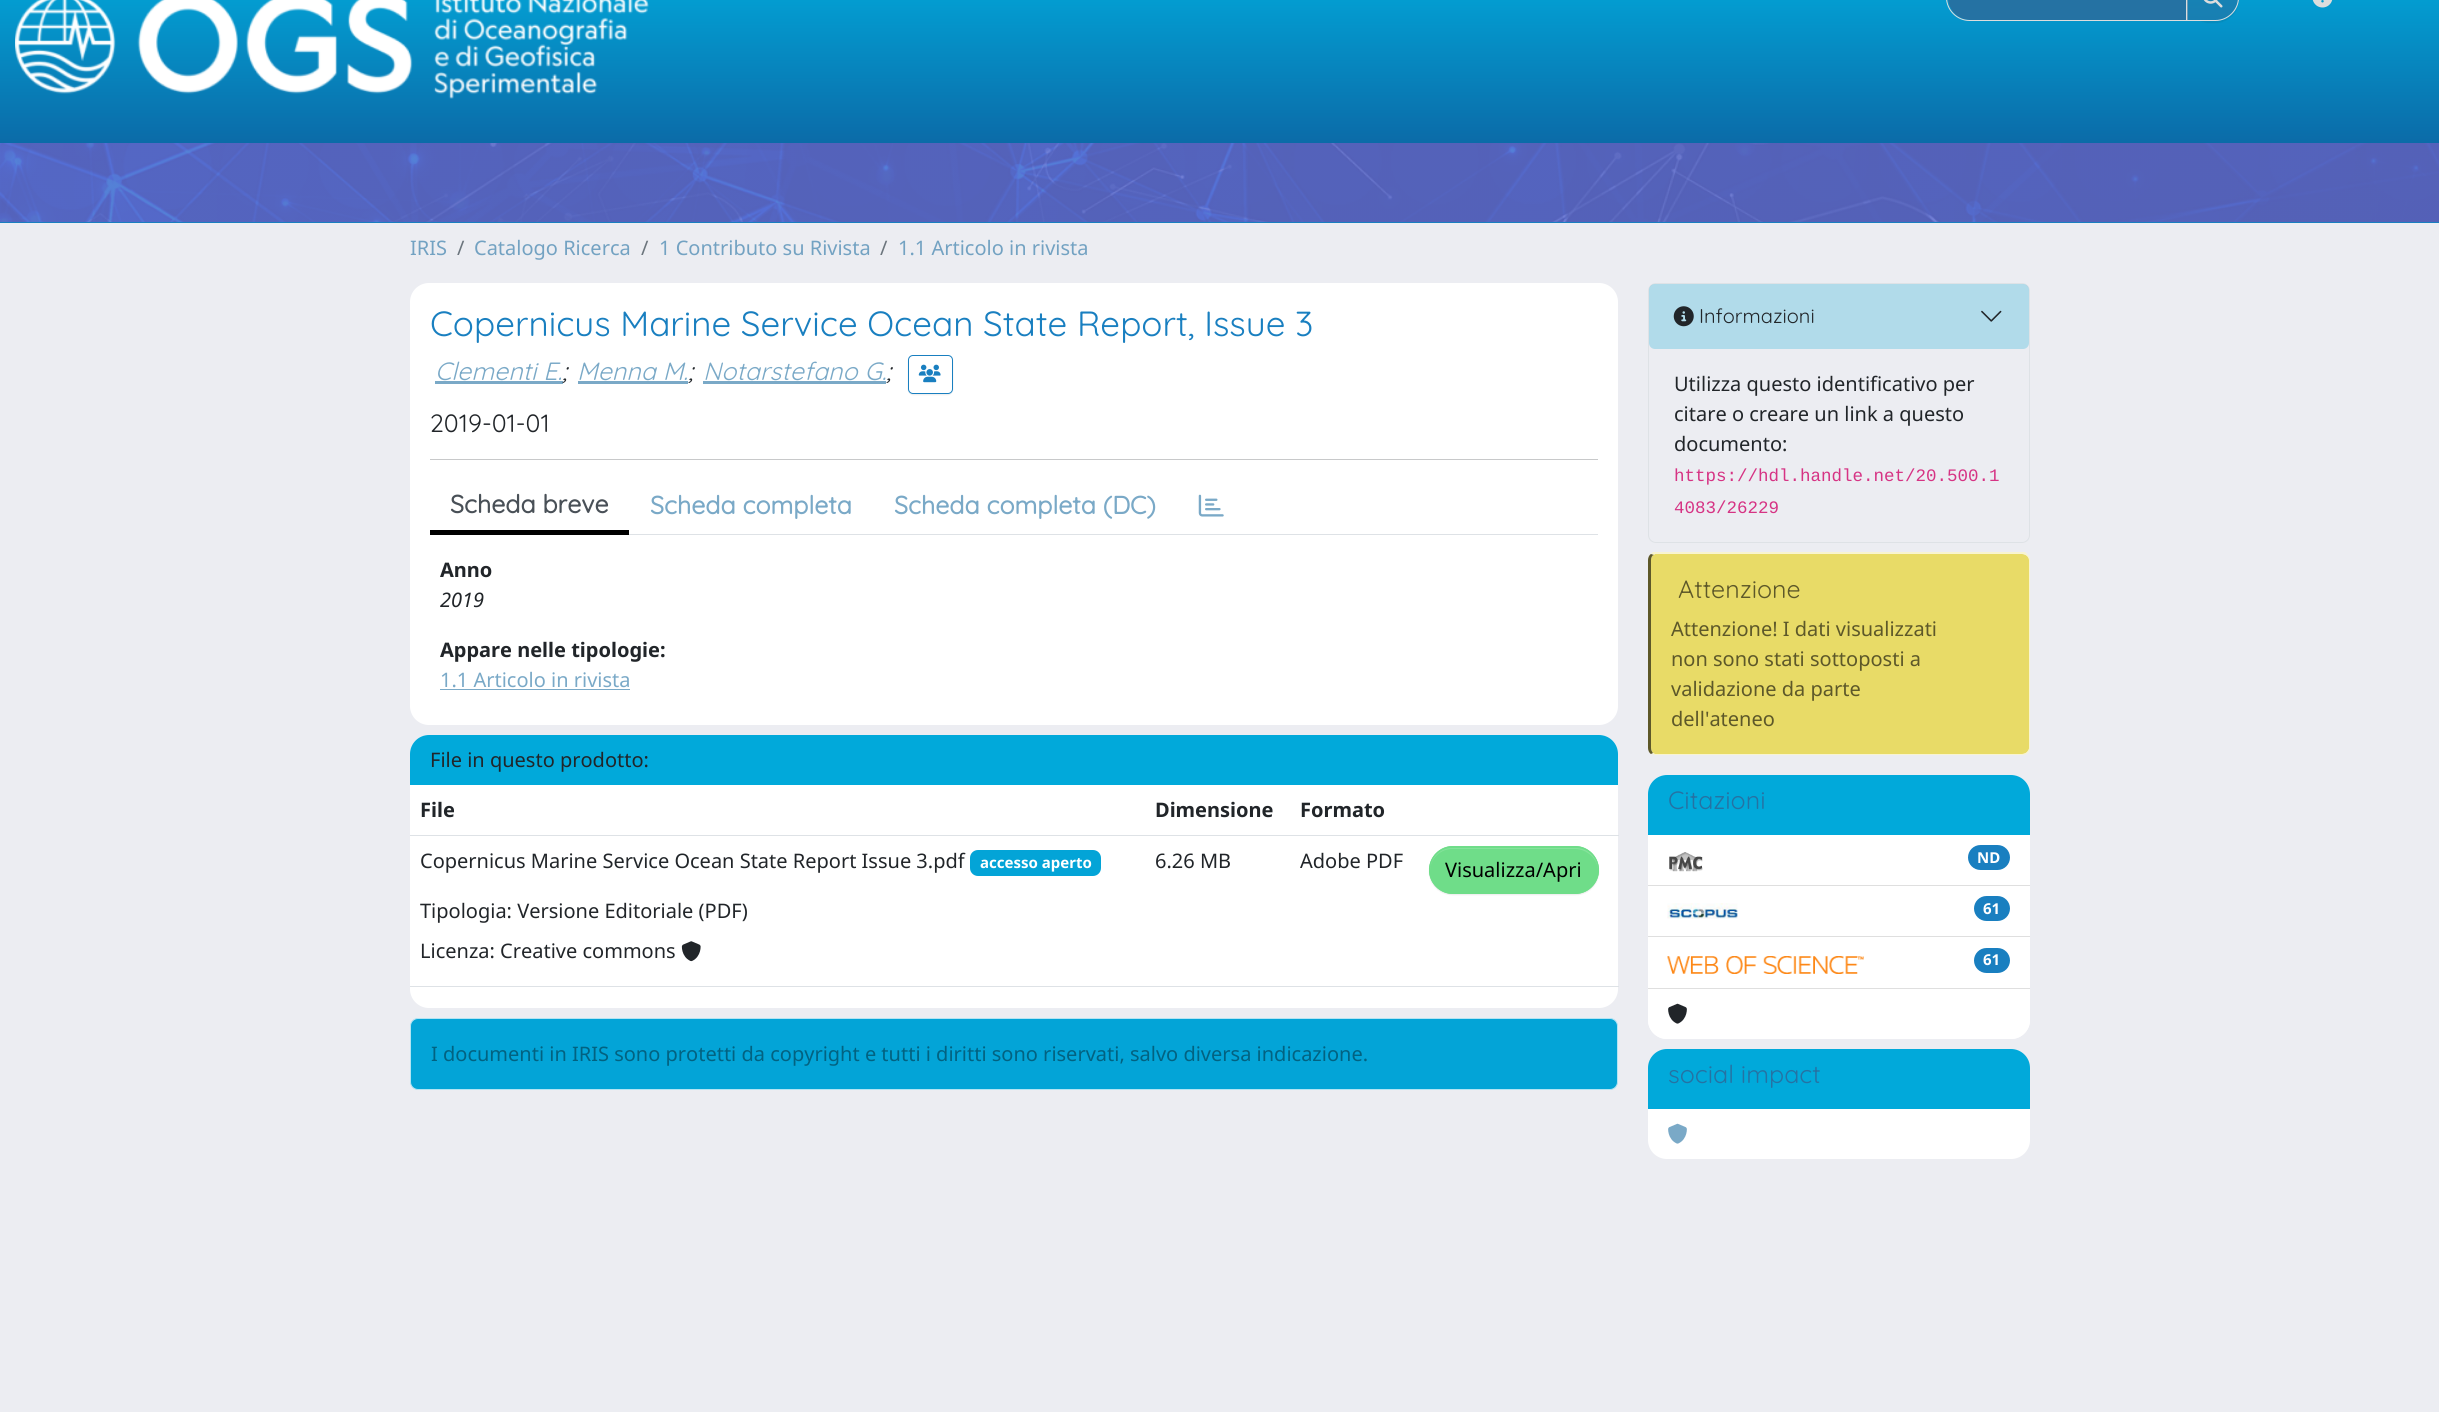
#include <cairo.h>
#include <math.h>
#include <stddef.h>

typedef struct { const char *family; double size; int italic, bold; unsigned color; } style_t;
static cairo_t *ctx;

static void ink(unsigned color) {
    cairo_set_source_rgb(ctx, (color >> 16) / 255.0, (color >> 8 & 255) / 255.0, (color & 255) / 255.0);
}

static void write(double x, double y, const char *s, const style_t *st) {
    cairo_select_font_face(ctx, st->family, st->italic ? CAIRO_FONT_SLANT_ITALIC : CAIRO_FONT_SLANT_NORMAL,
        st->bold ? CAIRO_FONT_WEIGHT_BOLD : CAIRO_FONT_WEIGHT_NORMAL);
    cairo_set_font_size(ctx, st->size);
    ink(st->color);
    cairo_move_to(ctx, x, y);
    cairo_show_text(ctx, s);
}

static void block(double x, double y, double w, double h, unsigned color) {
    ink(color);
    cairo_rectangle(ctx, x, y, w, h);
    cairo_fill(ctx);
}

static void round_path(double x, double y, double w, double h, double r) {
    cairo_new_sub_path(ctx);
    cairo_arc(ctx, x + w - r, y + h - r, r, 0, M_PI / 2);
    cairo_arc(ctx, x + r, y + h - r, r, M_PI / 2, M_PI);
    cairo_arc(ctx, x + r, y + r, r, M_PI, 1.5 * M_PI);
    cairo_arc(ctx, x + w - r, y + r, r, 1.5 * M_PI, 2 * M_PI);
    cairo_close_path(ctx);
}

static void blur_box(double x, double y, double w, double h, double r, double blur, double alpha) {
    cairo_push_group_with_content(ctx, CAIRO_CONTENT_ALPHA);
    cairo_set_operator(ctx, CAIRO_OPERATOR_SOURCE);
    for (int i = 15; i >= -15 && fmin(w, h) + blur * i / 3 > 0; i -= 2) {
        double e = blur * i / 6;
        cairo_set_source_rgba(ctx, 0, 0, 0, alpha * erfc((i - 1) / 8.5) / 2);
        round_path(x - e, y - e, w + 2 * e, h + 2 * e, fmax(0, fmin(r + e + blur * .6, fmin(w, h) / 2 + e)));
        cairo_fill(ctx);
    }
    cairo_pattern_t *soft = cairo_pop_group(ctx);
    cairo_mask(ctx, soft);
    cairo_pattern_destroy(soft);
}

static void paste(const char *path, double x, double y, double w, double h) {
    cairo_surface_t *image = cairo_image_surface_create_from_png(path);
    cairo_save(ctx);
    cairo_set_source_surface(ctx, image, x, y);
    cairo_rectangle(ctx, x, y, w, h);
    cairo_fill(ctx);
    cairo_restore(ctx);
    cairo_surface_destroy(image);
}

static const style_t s1 = {"Noto Sans", 20, 0, 0, 0x73a2c2};
static const style_t s2 = {"Noto Sans", 20, 0, 0, 0x6c757d};
static const style_t s3 = {"Quicksand Light", 35, 0, 0, 0x197fc0};
static const style_t s4 = {"Quicksand Light", 25, 1, 0, 0x7aa9c7};
static const style_t s5 = {"Quicksand Light", 25, 1, 0, 0x212529};
static const style_t s6 = {"Quicksand Light", 25, 0, 0, 0x212529};
static const style_t s7 = {"Quicksand", 25, 0, 1, 0x495057};
static const style_t s8 = {"Quicksand", 25, 0, 1, 0x7aa9c7};
static const style_t s9 = {"Noto Sans", 20, 0, 1, 0x212529};
static const style_t s10 = {"Noto Sans", 20, 1, 0, 0x212529};
static const style_t s11 = {"Noto Sans", 20, 0, 0, 0x7aa9c7};
static const style_t s12 = {"Noto Sans", 20, 0, 0, 0x212529};
static const style_t s13 = {"Noto Sans", 15, 0, 1, 0xffffff};
static const style_t s14 = {"Noto Sans", 20, 0, 0, 0x000000};
static const style_t s15 = {"Noto Sans", 20, 0, 0, 0x026281};
static const style_t s16 = {"Quicksand Light", 20, 0, 0, 0x212529};
static const style_t s17 = {"Liberation Mono", 17.5, 0, 0, 0xd63384};
static const style_t s18 = {"Quicksand Light", 25, 0, 0, 0x5d5829};
static const style_t s19 = {"Noto Sans", 20, 0, 0, 0x5d5829};
static const style_t s20 = {"Quicksand Light", 25, 0, 0, 0x2572a3};

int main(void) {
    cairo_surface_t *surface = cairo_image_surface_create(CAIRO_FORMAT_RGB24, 2439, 1412);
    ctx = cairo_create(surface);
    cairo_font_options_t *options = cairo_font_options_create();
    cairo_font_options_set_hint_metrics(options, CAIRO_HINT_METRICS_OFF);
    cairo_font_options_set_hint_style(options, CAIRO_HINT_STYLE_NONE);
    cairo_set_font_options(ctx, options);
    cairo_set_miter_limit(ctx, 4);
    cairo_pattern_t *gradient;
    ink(0xecedf2);
    cairo_paint(ctx);
    gradient = cairo_pattern_create_linear(1220, -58, 1220, 143);
    cairo_pattern_add_color_stop_rgba(gradient, 0, 0, 0.69, 0.882, 1);
    cairo_pattern_add_color_stop_rgba(gradient, 1, 0.043, 0.42, 0.659, 1);
    cairo_set_source(ctx, gradient);
    cairo_pattern_destroy(gradient);
    cairo_rectangle(ctx, 0, 0, 2439, 143);
    cairo_fill(ctx);
    paste("pic1.png", 15, 0, 634, 99);
    ink(0x2572a3);
    cairo_new_path(ctx);
    cairo_move_to(ctx, 1970.5, -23);
    cairo_line_to(ctx, 2186, -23);
    cairo_line_to(ctx, 2186, 20);
    cairo_line_to(ctx, 1970.5, 20);
    cairo_curve_to(ctx, 1958, 20, 1948, 10, 1948, -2.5);
    cairo_line_to(ctx, 1948, -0.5);
    cairo_curve_to(ctx, 1948, -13, 1958, -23, 1970.5, -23);
    cairo_close_path(ctx);
    cairo_fill(ctx);
    cairo_new_path(ctx);
    cairo_move_to(ctx, 1969.5, -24.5);
    cairo_line_to(ctx, 2187.5, -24.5);
    cairo_line_to(ctx, 2187.5, 20.5);
    cairo_line_to(ctx, 1969.5, 20.5);
    cairo_curve_to(ctx, 1957, 20.5, 1946.5, 10, 1946.5, -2.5);
    cairo_line_to(ctx, 1946.5, -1.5);
    cairo_curve_to(ctx, 1946.5, -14, 1957, -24.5, 1969.5, -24.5);
    cairo_close_path(ctx);
    ink(0xdddddd);
    cairo_set_line_width(ctx, 1);
    cairo_stroke(ctx);
    cairo_save(ctx);
    cairo_set_fill_rule(ctx, CAIRO_FILL_RULE_EVEN_ODD);
    cairo_new_path(ctx);
    cairo_move_to(ctx, 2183, 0);
    cairo_line_to(ctx, 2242, 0);
    cairo_line_to(ctx, 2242, 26);
    cairo_line_to(ctx, 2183, 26);
    cairo_close_path(ctx);
    cairo_move_to(ctx, 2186, -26);
    cairo_line_to(ctx, 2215.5, -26);
    cairo_curve_to(ctx, 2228.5, -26, 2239, -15.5, 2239, -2.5);
    cairo_curve_to(ctx, 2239, 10.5, 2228.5, 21, 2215.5, 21);
    cairo_line_to(ctx, 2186, 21);
    cairo_close_path(ctx);
    cairo_clip(ctx);
    ink(0x000000);
    blur_box(2186, -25, 53, 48, 24, 0.5, 0.07);
    cairo_restore(ctx);
    cairo_set_source_rgba(ctx, 0.145, 0.447, 0.639, 0.61);
    cairo_new_path(ctx);
    cairo_move_to(ctx, 2186.5, -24.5);
    cairo_line_to(ctx, 2215.5, -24.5);
    cairo_curve_to(ctx, 2228, -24.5, 2238.5, -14, 2238.5, -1.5);
    cairo_line_to(ctx, 2238.5, -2.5);
    cairo_curve_to(ctx, 2238.5, 10, 2228, 20.5, 2215.5, 20.5);
    cairo_line_to(ctx, 2186.5, 20.5);
    cairo_close_path(ctx);
    cairo_fill_preserve(ctx);
    ink(0xdddddd);
    cairo_stroke(ctx);
    paste("pic2.png", 2203, 0, 20, 8);
    paste("pic3.png", 2312, 0, 21, 8);
    block(0, 143, 2439, 80, 0x197fc0);
    paste("pic4.png", 0, 143, 2439, 79);
    write(410, 255, "IRIS", &s1);
    write(457, 255, "/", &s2);
    write(474, 255, "Catalogo Ricerca", &s1);
    write(641, 255, "/", &s2);
    write(659, 255, "1 Contributo su Rivista", &s1);
    write(880, 255, "/", &s2);
    write(898, 255, "1.1 Articolo in rivista", &s1);
    ink(0xffffff);
    round_path(410, 283, 1208, 442, 19);
    cairo_fill(ctx);
    write(430, 336, "Copernicus Marine Service Ocean State Report, Issue 3", &s3);
    write(435, 380, "Clementi E.", &s4);
    block(435, 381, 128, 3, 0x7aa9c7);
    write(562, 380, ";", &s5);
    write(577, 380, "Menna M.", &s4);
    write(688, 380, ";", &s5);
    block(578, 381, 110, 3, 0x7aa9c7);
    write(703, 380, "Notarstefano G.", &s4);
    write(886, 380, ";", &s5);
    block(703, 381, 183, 3, 0x7aa9c7);
    cairo_save(ctx);
    cairo_set_fill_rule(ctx, CAIRO_FILL_RULE_EVEN_ODD);
    cairo_new_path(ctx);
    cairo_move_to(ctx, 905, 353);
    cairo_line_to(ctx, 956, 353);
    cairo_line_to(ctx, 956, 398);
    cairo_line_to(ctx, 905, 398);
    cairo_close_path(ctx);
    cairo_move_to(ctx, 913, 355);
    cairo_line_to(ctx, 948, 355);
    cairo_curve_to(ctx, 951, 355, 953, 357, 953, 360);
    cairo_line_to(ctx, 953, 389);
    cairo_curve_to(ctx, 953, 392, 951, 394, 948, 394);
    cairo_line_to(ctx, 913, 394);
    cairo_curve_to(ctx, 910, 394, 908, 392, 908, 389);
    cairo_line_to(ctx, 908, 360);
    cairo_curve_to(ctx, 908, 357, 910, 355, 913, 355);
    cairo_close_path(ctx);
    cairo_clip(ctx);
    ink(0x000000);
    blur_box(908, 356, 45, 39, 5, 0.5, 0.07);
    cairo_restore(ctx);
    round_path(908.5, 355.5, 44, 38, 4.5);
    ink(0x197fc0);
    cairo_stroke(ctx);
    paste("pic5.png", 918, 364, 23, 19);
    write(430, 432, "2019-01-01", &s6);
    block(430, 459, 1168, 1, 0xc8c9ca);
    block(629, 534, 969, 1, 0xdee2e6);
    block(430, 530, 199, 5, 0x000000);
    write(450, 513, "Scheda breve", &s7);
    write(650, 514, "Scheda completa", &s8);
    write(894, 514, "Scheda completa (DC)", &s8);
    paste("pic6.png", 1198, 494, 26, 23);
    write(440, 577, "Anno", &s9);
    write(440, 607, "2019", &s10);
    write(440, 657, "Appare nelle tipologie:", &s9);
    write(440, 687, "1.1 Articolo in rivista", &s11);
    block(440, 689, 190, 1, 0x7aa9c7);
    ink(0xffffff);
    round_path(410, 735, 1208, 273, 19);
    cairo_fill(ctx);
    ink(0x01a9da);
    cairo_new_path(ctx);
    cairo_move_to(ctx, 429, 735);
    cairo_line_to(ctx, 1599, 735);
    cairo_curve_to(ctx, 1609.5, 735, 1618, 743.5, 1618, 754);
    cairo_line_to(ctx, 1618, 785);
    cairo_line_to(ctx, 410, 785);
    cairo_line_to(ctx, 410, 754);
    cairo_curve_to(ctx, 410, 743.5, 418.5, 735, 429, 735);
    cairo_close_path(ctx);
    cairo_fill(ctx);
    write(430, 767, "File in questo prodotto:", &s12);
    write(420, 817, "File", &s9);
    write(1155, 817, "Dimensione", &s9);
    write(1300, 817, "Formato", &s9);
    block(410, 835, 1209, 1, 0xdee2e6);
    write(420, 868, "Copernicus Marine Service Ocean State Report Issue 3.pdf", &s12);
    ink(0x03a4d7);
    round_path(970, 850, 131, 26, 8);
    cairo_fill(ctx);
    write(980, 868, "accesso aperto", &s13);
    write(420, 918, "Tipologia: Versione Editoriale (PDF)", &s12);
    write(420, 958, "Licenza: Creative commons", &s12);
    paste("pic7.png", 681, 941, 20, 21);
    write(1155, 868, "6.26 MB", &s12);
    write(1300, 868, "Adobe PDF", &s12);
    block(410, 986, 1209, 1, 0xdee2e6);
    ink(0x000000);
    blur_box(1429, 848, 170, 47, 23.5, 0.5, 0.07);
    ink(0x6fdd89);
    round_path(1429, 846, 170, 48, 24);
    cairo_fill(ctx);
    ink(0x85e29b);
    cairo_new_path(ctx);
    cairo_move_to(ctx, 1452, 849);
    cairo_line_to(ctx, 1575, 849);
    cairo_curve_to(ctx, 1587, 849, 1598, 859, 1598, 871);
    cairo_line_to(ctx, 1598, 870);
    cairo_curve_to(ctx, 1598, 858, 1588, 848, 1576, 848);
    cairo_line_to(ctx, 1452, 848);
    cairo_curve_to(ctx, 1440, 848, 1430, 858, 1430, 870);
    cairo_line_to(ctx, 1430, 871);
    cairo_curve_to(ctx, 1430, 859, 1440, 849, 1452, 849);
    cairo_close_path(ctx);
    cairo_fill(ctx);
    round_path(1429.5, 846.5, 169, 47, 23.5);
    ink(0x6fdd89);
    cairo_stroke(ctx);
    write(1445, 877, "Visualizza/Apri", &s14);
    ink(0x03a4d7);
    round_path(410.5, 1018.5, 1207, 71, 7.5);
    cairo_fill_preserve(ctx);
    ink(0xb3e4f3);
    cairo_stroke(ctx);
    write(431, 1061, "I documenti in IRIS sono protetti da copyright e tutti i diritti sono riservati, salvo diversa indicazione.", &s15);
    round_path(1648.5, 283.5, 381, 259, 7.5);
    ink(0xdee2e6);
    cairo_stroke(ctx);
    cairo_set_source_rgba(ctx, 0.012, 0.643, 0.843, 0.25);
    round_path(1649, 284, 380, 65, 6);
    cairo_fill(ctx);
    paste("pic8.png", 1673, 306, 21, 21);
    write(1699, 323, "Informazioni", &s16);
    paste("pic9.png", 1981, 310, 21, 12);
    write(1674, 391, "Utilizza questo identificativo per", &s12);
    write(1674, 421, "citare o creare un link a questo", &s12);
    write(1674, 451, "documento:", &s12);
    write(1674, 481, "https://hdl.handle.net/20.500.1", &s17);
    write(1674, 513, "4083/26229", &s17);
    ink(0xe8db67);
    cairo_new_path(ctx);
    cairo_move_to(ctx, 1655, 554);
    cairo_line_to(ctx, 2022, 554);
    cairo_curve_to(ctx, 2026, 554, 2029, 557, 2029, 560);
    cairo_line_to(ctx, 2029, 748);
    cairo_curve_to(ctx, 2029, 751, 2026, 754, 2022, 754);
    cairo_line_to(ctx, 1655, 754);
    cairo_curve_to(ctx, 1653, 754, 1651, 751, 1651, 748);
    cairo_line_to(ctx, 1651, 560);
    cairo_curve_to(ctx, 1651, 557, 1653, 554, 1655, 554);
    cairo_close_path(ctx);
    cairo_fill(ctx);
    ink(0xf8f4d1);
    cairo_new_path(ctx);
    cairo_move_to(ctx, 1655, 554);
    cairo_line_to(ctx, 1654, 555);
    cairo_line_to(ctx, 1651, 554);
    cairo_line_to(ctx, 1653, 552);
    cairo_line_to(ctx, 2025, 552);
    cairo_line_to(ctx, 2028, 555);
    cairo_line_to(ctx, 2027, 556);
    cairo_curve_to(ctx, 2026, 555, 2024, 554, 2022, 554);
    cairo_close_path(ctx);
    cairo_fill(ctx);
    cairo_new_path(ctx);
    cairo_move_to(ctx, 2030, 748);
    cairo_line_to(ctx, 2030, 560);
    cairo_curve_to(ctx, 2030, 558, 2029, 556, 2028, 555);
    cairo_line_to(ctx, 2027, 556);
    cairo_curve_to(ctx, 2028, 557, 2029, 558, 2029, 560);
    cairo_line_to(ctx, 2029, 749);
    cairo_line_to(ctx, 2027, 752);
    cairo_line_to(ctx, 2028, 753);
    cairo_curve_to(ctx, 2029, 752, 2030, 750, 2030, 748);
    cairo_close_path(ctx);
    cairo_fill(ctx);
    cairo_new_path(ctx);
    cairo_move_to(ctx, 1655, 755);
    cairo_line_to(ctx, 2022, 755);
    cairo_curve_to(ctx, 2025, 755, 2027, 754, 2028, 753);
    cairo_line_to(ctx, 2027, 752);
    cairo_curve_to(ctx, 2026, 753, 2024, 754, 2022, 754);
    cairo_line_to(ctx, 1655, 754);
    cairo_line_to(ctx, 1653, 753);
    cairo_line_to(ctx, 1651, 754);
    cairo_close_path(ctx);
    cairo_fill(ctx);
    ink(0x5d5829);
    cairo_new_path(ctx);
    cairo_move_to(ctx, 1651, 754);
    cairo_curve_to(ctx, 1649, 753, 1648, 750, 1648, 748);
    cairo_line_to(ctx, 1648, 560);
    cairo_curve_to(ctx, 1648, 558, 1649, 555, 1651, 554);
    cairo_line_to(ctx, 1654, 555);
    cairo_curve_to(ctx, 1652, 555, 1651, 558, 1651, 560);
    cairo_line_to(ctx, 1651, 748);
    cairo_curve_to(ctx, 1651, 750, 1652, 752, 1653, 753);
    cairo_close_path(ctx);
    cairo_fill(ctx);
    write(1678, 598, "Attenzione", &s18);
    write(1671, 636, "Attenzione! I dati visualizzati", &s19);
    write(1671, 666, "non sono stati sottoposti a", &s19);
    write(1671, 696, "validazione da parte", &s19);
    write(1671, 726, "dell'ateneo", &s19);
    ink(0xffffff);
    round_path(1648, 775, 382, 264, 19);
    cairo_fill(ctx);
    ink(0x01a9da);
    cairo_new_path(ctx);
    cairo_move_to(ctx, 1667, 775);
    cairo_line_to(ctx, 2011, 775);
    cairo_curve_to(ctx, 2021.5, 775, 2030, 783.5, 2030, 794);
    cairo_line_to(ctx, 2030, 835);
    cairo_line_to(ctx, 1648, 835);
    cairo_line_to(ctx, 1648, 794);
    cairo_curve_to(ctx, 1648, 783.5, 1656.5, 775, 1667, 775);
    cairo_close_path(ctx);
    cairo_fill(ctx);
    write(1668, 809, "Citazioni", &s20);
    block(1648, 885, 382, 1, 0xdfdfdf);
    paste("pic10.png", 1669, 852, 34, 20);
    ink(0x197fc0);
    round_path(1968, 845, 42, 25, 12.5);
    cairo_fill(ctx);
    write(1977, 863, "ND", &s13);
    block(1648, 936, 382, 1, 0xdfdfdf);
    paste("pic11.png", 1667, 903, 71, 16);
    ink(0x197fc0);
    round_path(1974, 896, 36, 25, 12.5);
    cairo_fill(ctx);
    write(1983, 914, "61", &s13);
    block(1648, 988, 382, 1, 0xdfdfdf);
    paste("pic12.png", 1667, 956, 197, 18);
    ink(0x197fc0);
    round_path(1974, 948, 36, 25, 12.5);
    cairo_fill(ctx);
    write(1983, 965, "61", &s13);
    cairo_new_path(ctx);
    cairo_move_to(ctx, 1648, 989);
    cairo_line_to(ctx, 2030, 989);
    cairo_line_to(ctx, 2030, 1020);
    cairo_curve_to(ctx, 2030, 1030.5, 2021.5, 1039, 2011, 1039);
    cairo_line_to(ctx, 1667, 1039);
    cairo_curve_to(ctx, 1656.5, 1039, 1648, 1030.5, 1648, 1020);
    cairo_close_path(ctx);
    cairo_fill(ctx);
    paste("pic13.png", 1668, 1003, 19, 21);
    ink(0x01a9da);
    cairo_new_path(ctx);
    cairo_move_to(ctx, 1667, 1049);
    cairo_line_to(ctx, 2011, 1049);
    cairo_curve_to(ctx, 2021.5, 1049, 2030, 1057.5, 2030, 1068);
    cairo_line_to(ctx, 2030, 1109);
    cairo_line_to(ctx, 1648, 1109);
    cairo_line_to(ctx, 1648, 1068);
    cairo_curve_to(ctx, 1648, 1057.5, 1656.5, 1049, 1667, 1049);
    cairo_close_path(ctx);
    cairo_fill(ctx);
    write(1668, 1083, "social impact", &s20);
    ink(0xffffff);
    cairo_new_path(ctx);
    cairo_move_to(ctx, 1648, 1109);
    cairo_line_to(ctx, 2030, 1109);
    cairo_line_to(ctx, 2030, 1140);
    cairo_curve_to(ctx, 2030, 1150.5, 2021.5, 1159, 2011, 1159);
    cairo_line_to(ctx, 1667, 1159);
    cairo_curve_to(ctx, 1656.5, 1159, 1648, 1150.5, 1648, 1140);
    cairo_close_path(ctx);
    cairo_fill(ctx);
    paste("pic14.png", 1668, 1123, 19, 21);
    cairo_surface_write_to_png(surface, "screenshot.png");
    cairo_font_options_destroy(options);
    cairo_destroy(ctx);
    cairo_surface_destroy(surface);
    return 0;
}
